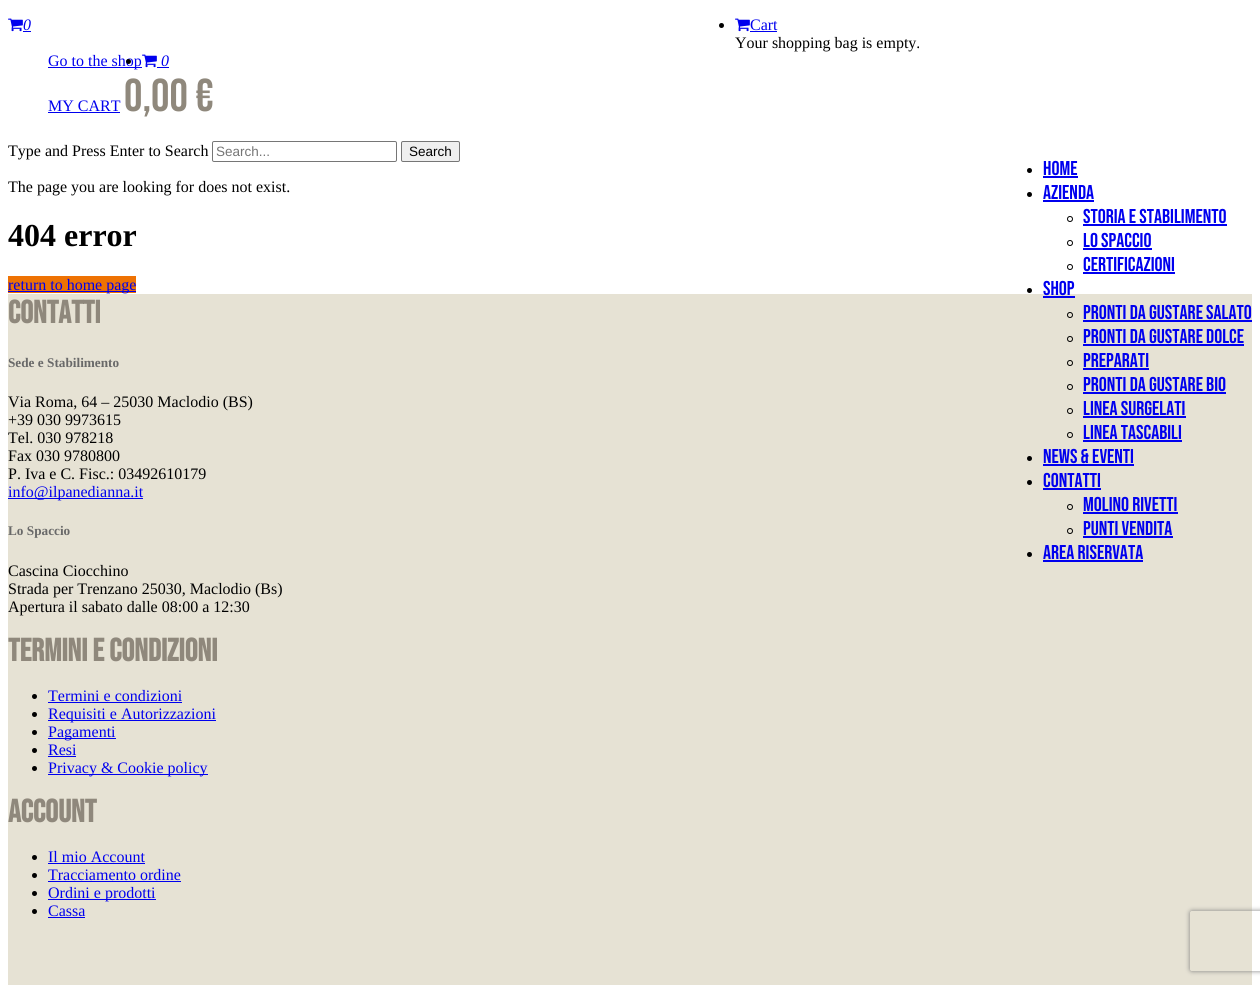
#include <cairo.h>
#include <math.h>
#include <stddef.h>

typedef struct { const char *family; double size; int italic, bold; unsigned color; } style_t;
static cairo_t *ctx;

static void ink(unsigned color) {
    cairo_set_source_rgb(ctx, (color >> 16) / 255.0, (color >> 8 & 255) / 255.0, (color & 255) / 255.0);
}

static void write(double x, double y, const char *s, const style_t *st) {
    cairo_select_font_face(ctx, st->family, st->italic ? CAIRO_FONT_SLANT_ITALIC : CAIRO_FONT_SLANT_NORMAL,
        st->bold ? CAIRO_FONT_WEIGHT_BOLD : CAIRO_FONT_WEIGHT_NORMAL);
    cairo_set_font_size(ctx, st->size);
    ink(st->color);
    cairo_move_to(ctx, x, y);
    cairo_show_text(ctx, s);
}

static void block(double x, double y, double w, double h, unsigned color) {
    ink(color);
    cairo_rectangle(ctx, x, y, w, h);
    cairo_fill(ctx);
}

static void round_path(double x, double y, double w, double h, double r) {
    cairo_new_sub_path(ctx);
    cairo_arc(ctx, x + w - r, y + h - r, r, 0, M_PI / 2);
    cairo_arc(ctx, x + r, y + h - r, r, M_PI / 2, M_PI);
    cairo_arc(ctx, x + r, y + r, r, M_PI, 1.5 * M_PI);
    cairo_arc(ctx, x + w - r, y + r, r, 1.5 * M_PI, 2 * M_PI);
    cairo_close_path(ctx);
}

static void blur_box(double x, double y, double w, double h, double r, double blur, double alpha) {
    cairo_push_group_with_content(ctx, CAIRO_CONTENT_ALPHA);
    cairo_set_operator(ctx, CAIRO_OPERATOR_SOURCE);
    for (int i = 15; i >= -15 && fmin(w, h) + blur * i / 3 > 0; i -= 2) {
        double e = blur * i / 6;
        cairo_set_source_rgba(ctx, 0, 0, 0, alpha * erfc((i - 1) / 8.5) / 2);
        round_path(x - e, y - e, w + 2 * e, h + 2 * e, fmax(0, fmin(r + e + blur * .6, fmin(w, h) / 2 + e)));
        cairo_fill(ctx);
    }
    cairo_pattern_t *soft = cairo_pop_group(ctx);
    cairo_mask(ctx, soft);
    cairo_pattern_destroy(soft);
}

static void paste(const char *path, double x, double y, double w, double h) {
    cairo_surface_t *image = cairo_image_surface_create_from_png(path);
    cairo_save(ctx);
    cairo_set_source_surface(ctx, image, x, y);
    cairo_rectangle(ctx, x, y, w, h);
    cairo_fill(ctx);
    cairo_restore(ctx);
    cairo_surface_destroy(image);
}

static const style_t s1 = {"Liberation Serif", 16, 1, 0, 0x0000ee};
static const style_t s2 = {"Liberation Serif", 16, 0, 0, 0x0000ee};
static const style_t s3 = {"Liberation Serif", 16, 0, 0, 0x000000};
static const style_t s4 = {"Bebas Neue", 46, 0, 0, 0x8f887c};
static const style_t s5 = {"Bebas Neue", 20, 0, 0, 0x0000ee};
static const style_t s6 = {"Liberation Sans", 13.5, 0, 0, 0x757575};
static const style_t s7 = {"Liberation Sans", 13.5, 0, 0, 0x000000};
static const style_t s8 = {"Liberation Serif", 32, 0, 1, 0x000000};
static const style_t s9 = {"Bebas Neue", 32, 0, 1, 0x8f887c};
static const style_t s10 = {"Liberation Serif", 13.25, 0, 1, 0x696969};

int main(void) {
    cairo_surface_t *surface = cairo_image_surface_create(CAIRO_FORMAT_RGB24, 1260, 985);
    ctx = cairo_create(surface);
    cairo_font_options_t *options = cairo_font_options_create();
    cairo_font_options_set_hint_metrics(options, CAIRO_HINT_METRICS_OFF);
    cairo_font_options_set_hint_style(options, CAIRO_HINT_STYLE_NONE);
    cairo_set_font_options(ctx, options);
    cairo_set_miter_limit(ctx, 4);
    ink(0xffffff);
    cairo_paint(ctx);
    paste("pic1.png", 8, 18, 15, 14);
    write(23, 30, "0", &s1);
    block(23, 31, 8, 1, 0x0000ee);
    ink(0x000000);
    cairo_new_path(ctx);
    cairo_arc(ctx, 721.5, 25.5, 2.5, 0, 2 * M_PI);
    cairo_fill(ctx);
    paste("pic1.png", 735, 18, 15, 14);
    write(750, 30, "Cart", &s2);
    block(750, 31, 27, 1, 0x0000ee);
    write(735, 48, "Your shopping bag is empty.", &s3);
    block(48, 67, 94, 1, 0x0000ee);
    write(48, 66, "Go to the shop", &s2);
    ink(0x000000);
    cairo_new_path(ctx);
    cairo_arc(ctx, 128.5, 61.5, 2.5, 0, 2 * M_PI);
    cairo_fill(ctx);
    paste("pic1.png", 142, 54, 15, 14);
    write(161, 66, "0", &s1);
    block(157, 67, 12, 1, 0x0000ee);
    write(48, 111, "MY CART", &s2);
    block(48, 112, 72, 1, 0x0000ee);
    write(124, 111, "0,00 €", &s4);
    ink(0x000000);
    cairo_new_path(ctx);
    cairo_arc(ctx, 1029.5, 170.5, 2.5, 0, 2 * M_PI);
    cairo_fill(ctx);
    write(1043, 175, "Home", &s5);
    block(1043, 176, 35, 2, 0x0000ee);
    ink(0x000000);
    cairo_new_path(ctx);
    cairo_arc(ctx, 1029.5, 194.5, 2.5, 0, 2 * M_PI);
    cairo_fill(ctx);
    write(1043, 199, "Azienda", &s5);
    block(1043, 200, 51, 2, 0x0000ee);
    cairo_new_path(ctx);
    cairo_arc(ctx, 1070, 219, 2.5, 0, 2 * M_PI);
    ink(0x000000);
    cairo_set_line_width(ctx, 1);
    cairo_stroke(ctx);
    write(1083, 223, "Storia e Stabilimento", &s5);
    block(1083, 224, 144, 2, 0x0000ee);
    cairo_new_path(ctx);
    cairo_arc(ctx, 1070, 243, 2.5, 0, 2 * M_PI);
    ink(0x000000);
    cairo_stroke(ctx);
    write(1083, 247, "Lo Spaccio", &s5);
    block(1083, 248, 69, 2, 0x0000ee);
    cairo_new_path(ctx);
    cairo_arc(ctx, 1070, 267, 2.5, 0, 2 * M_PI);
    ink(0x000000);
    cairo_stroke(ctx);
    write(1083, 271, "Certificazioni", &s5);
    block(1083, 272, 92, 2, 0x0000ee);
    ink(0x000000);
    cairo_new_path(ctx);
    cairo_arc(ctx, 1029.5, 290.5, 2.5, 0, 2 * M_PI);
    cairo_fill(ctx);
    block(8, 294, 1244, 691, 0xe6e2d4);
    write(1043, 295, "Shop", &s5);
    block(1043, 296, 32, 2, 0x0000ee);
    cairo_new_path(ctx);
    cairo_arc(ctx, 1070, 315, 2.5, 0, 2 * M_PI);
    ink(0x000000);
    cairo_stroke(ctx);
    write(1083, 319, "Pronti da gustare salato", &s5);
    block(1083, 320, 169, 2, 0x0000ee);
    cairo_new_path(ctx);
    cairo_arc(ctx, 1070, 339, 2.5, 0, 2 * M_PI);
    ink(0x000000);
    cairo_stroke(ctx);
    write(1083, 343, "Pronti da gustare dolce", &s5);
    block(1083, 344, 161, 2, 0x0000ee);
    cairo_new_path(ctx);
    cairo_arc(ctx, 1070, 363, 2.5, 0, 2 * M_PI);
    ink(0x000000);
    cairo_stroke(ctx);
    write(1083, 367, "Preparati", &s5);
    block(1083, 368, 66, 2, 0x0000ee);
    cairo_new_path(ctx);
    cairo_arc(ctx, 1070, 387, 2.5, 0, 2 * M_PI);
    ink(0x000000);
    cairo_stroke(ctx);
    write(1083, 391, "Pronti da gustare Bio", &s5);
    block(1083, 392, 143, 2, 0x0000ee);
    cairo_new_path(ctx);
    cairo_arc(ctx, 1070, 411, 2.5, 0, 2 * M_PI);
    ink(0x000000);
    cairo_stroke(ctx);
    write(1083, 415, "Linea surgelati", &s5);
    block(1083, 416, 103, 2, 0x0000ee);
    cairo_new_path(ctx);
    cairo_arc(ctx, 1070, 435, 2.5, 0, 2 * M_PI);
    ink(0x000000);
    cairo_stroke(ctx);
    write(1083, 439, "Linea tascabili", &s5);
    block(1083, 440, 99, 2, 0x0000ee);
    ink(0x000000);
    cairo_new_path(ctx);
    cairo_arc(ctx, 1029.5, 458.5, 2.5, 0, 2 * M_PI);
    cairo_fill(ctx);
    write(1043, 463, "News & eventi", &s5);
    block(1043, 464, 91, 2, 0x0000ee);
    ink(0x000000);
    cairo_new_path(ctx);
    cairo_arc(ctx, 1029.5, 482.5, 2.5, 0, 2 * M_PI);
    cairo_fill(ctx);
    write(1043, 487, "Contatti", &s5);
    block(1043, 488, 58, 2, 0x0000ee);
    cairo_new_path(ctx);
    cairo_arc(ctx, 1070, 507, 2.5, 0, 2 * M_PI);
    ink(0x000000);
    cairo_stroke(ctx);
    write(1083, 511, "Molino Rivetti", &s5);
    block(1083, 512, 95, 2, 0x0000ee);
    cairo_new_path(ctx);
    cairo_arc(ctx, 1070, 531, 2.5, 0, 2 * M_PI);
    ink(0x000000);
    cairo_stroke(ctx);
    write(1083, 535, "Punti vendita", &s5);
    block(1083, 536, 90, 2, 0x0000ee);
    ink(0x000000);
    cairo_new_path(ctx);
    cairo_arc(ctx, 1029.5, 554.5, 2.5, 0, 2 * M_PI);
    cairo_fill(ctx);
    write(1043, 559, "Area Riservata", &s5);
    block(1043, 560, 100, 2, 0x0000ee);
    write(8, 156, "Type and Press Enter to Search", &s3);
    round_path(212.5, 141.5, 184, 20, 1.5);
    ink(0x767676);
    cairo_stroke(ctx);
    write(216, 156, "Search...", &s6);
    ink(0xefefef);
    round_path(401.5, 141.5, 58, 20, 1.5);
    cairo_fill_preserve(ctx);
    ink(0x767676);
    cairo_stroke(ctx);
    write(409, 156, "Search", &s7);
    write(8, 192, "The page you are looking for does not exist.", &s3);
    write(8, 246, "404 error", &s8);
    block(8, 276, 128, 17, 0xee7203);
    block(8, 291, 128, 1, 0x0000ee);
    write(8, 290, "return to home page", &s2);
    write(8, 323, "Contatti", &s9);
    write(8, 367, "Sede e Stabilimento", &s10);
    write(8, 407, "Via Roma, 64 – 25030 Maclodio (BS)", &s3);
    write(8, 425, "+39 030 9973615", &s3);
    write(8, 443, "Tel. 030 978218", &s3);
    write(8, 461, "Fax 030 9780800", &s3);
    write(8, 479, "P. Iva e C. Fisc.: 03492610179", &s3);
    block(8, 498, 135, 1, 0x0000ee);
    write(8, 497, "info@ilpanedianna.it", &s2);
    write(8, 535, "Lo Spaccio", &s10);
    write(8, 576, "Cascina Ciocchino", &s3);
    write(8, 594, "Strada per Trenzano 25030, Maclodio (Bs)", &s3);
    write(8, 612, "Apertura il sabato dalle 08:00 a 12:30", &s3);
    write(8, 661, "Termini E Condizioni", &s9);
    ink(0x000000);
    cairo_new_path(ctx);
    cairo_arc(ctx, 34.5, 696.5, 2.5, 0, 2 * M_PI);
    cairo_fill(ctx);
    write(48, 701, "Termini e condizioni", &s2);
    block(48, 702, 134, 1, 0x0000ee);
    ink(0x000000);
    cairo_new_path(ctx);
    cairo_arc(ctx, 34.5, 714.5, 2.5, 0, 2 * M_PI);
    cairo_fill(ctx);
    block(48, 720, 168, 1, 0x0000ee);
    write(48, 719, "Requisiti e Autorizzazioni", &s2);
    ink(0x000000);
    cairo_new_path(ctx);
    cairo_arc(ctx, 34.5, 732.5, 2.5, 0, 2 * M_PI);
    cairo_fill(ctx);
    block(48, 738, 68, 1, 0x0000ee);
    write(48, 737, "Pagamenti", &s2);
    ink(0x000000);
    cairo_new_path(ctx);
    cairo_arc(ctx, 34.5, 750.5, 2.5, 0, 2 * M_PI);
    cairo_fill(ctx);
    write(48, 755, "Resi", &s2);
    block(48, 756, 28, 1, 0x0000ee);
    ink(0x000000);
    cairo_new_path(ctx);
    cairo_arc(ctx, 34.5, 768.5, 2.5, 0, 2 * M_PI);
    cairo_fill(ctx);
    block(48, 774, 160, 1, 0x0000ee);
    write(48, 773, "Privacy & Cookie policy", &s2);
    write(8, 822, "Account", &s9);
    ink(0x000000);
    cairo_new_path(ctx);
    cairo_arc(ctx, 34.5, 857.5, 2.5, 0, 2 * M_PI);
    cairo_fill(ctx);
    write(48, 862, "Il mio Account", &s2);
    block(48, 863, 97, 1, 0x0000ee);
    ink(0x000000);
    cairo_new_path(ctx);
    cairo_arc(ctx, 34.5, 875.5, 2.5, 0, 2 * M_PI);
    cairo_fill(ctx);
    write(48, 880, "Tracciamento ordine", &s2);
    block(48, 881, 133, 1, 0x0000ee);
    ink(0x000000);
    cairo_new_path(ctx);
    cairo_arc(ctx, 34.5, 893.5, 2.5, 0, 2 * M_PI);
    cairo_fill(ctx);
    block(48, 899, 108, 1, 0x0000ee);
    write(48, 898, "Ordini e prodotti", &s2);
    ink(0x000000);
    cairo_new_path(ctx);
    cairo_arc(ctx, 34.5, 911.5, 2.5, 0, 2 * M_PI);
    cairo_fill(ctx);
    write(48, 916, "Cassa", &s2);
    block(48, 917, 37, 1, 0x0000ee);
    cairo_save(ctx);
    cairo_set_fill_rule(ctx, CAIRO_FILL_RULE_EVEN_ODD);
    cairo_new_path(ctx);
    cairo_move_to(ctx, 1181, 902);
    cairo_line_to(ctx, 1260, 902);
    cairo_line_to(ctx, 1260, 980);
    cairo_line_to(ctx, 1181, 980);
    cairo_close_path(ctx);
    cairo_move_to(ctx, 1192, 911);
    cairo_line_to(ctx, 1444, 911);
    cairo_curve_to(ctx, 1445, 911, 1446, 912, 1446, 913);
    cairo_line_to(ctx, 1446, 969);
    cairo_curve_to(ctx, 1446, 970, 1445, 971, 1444, 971);
    cairo_line_to(ctx, 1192, 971);
    cairo_curve_to(ctx, 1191, 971, 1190, 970, 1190, 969);
    cairo_line_to(ctx, 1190, 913);
    cairo_curve_to(ctx, 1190, 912, 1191, 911, 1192, 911);
    cairo_close_path(ctx);
    cairo_clip(ctx);
    ink(0x808080);
    blur_box(1190, 911, 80, 60, 2, 2.5, 1);
    cairo_restore(ctx);
    cairo_surface_write_to_png(surface, "screenshot.png");
    cairo_font_options_destroy(options);
    cairo_destroy(ctx);
    cairo_surface_destroy(surface);
    return 0;
}
